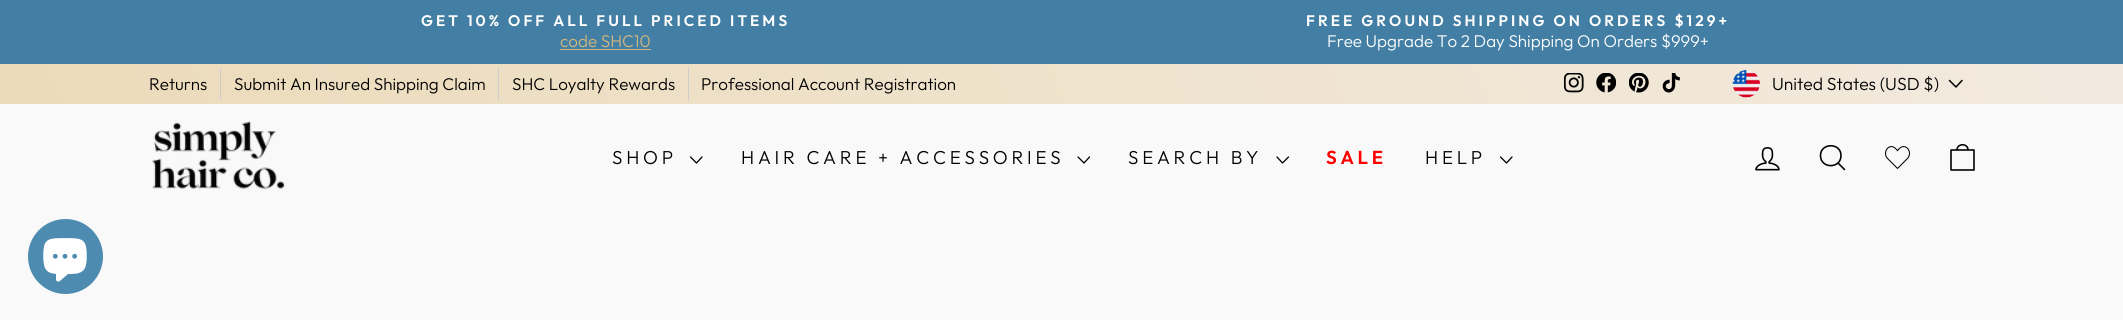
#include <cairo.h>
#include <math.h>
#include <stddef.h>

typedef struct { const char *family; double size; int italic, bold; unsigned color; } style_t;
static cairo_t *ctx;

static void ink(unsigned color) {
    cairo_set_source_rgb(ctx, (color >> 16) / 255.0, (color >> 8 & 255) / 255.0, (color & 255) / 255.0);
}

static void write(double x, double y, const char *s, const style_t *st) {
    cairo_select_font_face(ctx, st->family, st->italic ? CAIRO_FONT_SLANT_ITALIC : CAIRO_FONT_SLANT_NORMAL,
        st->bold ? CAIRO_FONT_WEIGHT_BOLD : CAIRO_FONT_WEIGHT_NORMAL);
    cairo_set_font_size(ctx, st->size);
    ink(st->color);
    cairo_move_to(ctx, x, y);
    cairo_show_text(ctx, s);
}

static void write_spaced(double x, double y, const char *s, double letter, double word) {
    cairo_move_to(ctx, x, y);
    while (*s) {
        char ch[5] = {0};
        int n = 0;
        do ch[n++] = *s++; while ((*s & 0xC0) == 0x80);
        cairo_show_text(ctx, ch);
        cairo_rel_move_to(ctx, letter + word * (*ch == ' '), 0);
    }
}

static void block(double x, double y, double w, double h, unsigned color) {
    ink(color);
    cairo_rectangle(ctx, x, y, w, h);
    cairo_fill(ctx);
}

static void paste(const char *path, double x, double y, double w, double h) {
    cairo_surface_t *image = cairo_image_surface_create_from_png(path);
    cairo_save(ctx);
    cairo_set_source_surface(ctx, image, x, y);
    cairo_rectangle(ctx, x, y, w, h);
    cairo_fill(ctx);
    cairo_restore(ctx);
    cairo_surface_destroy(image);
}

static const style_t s1 = {"Outfit Light", 17, 0, 0, 0xd2b67d};
static const style_t s2 = {"Outfit Light", 17, 0, 0, 0xffffff};
static const style_t s3 = {"Outfit Light", 17, 0, 0, 0x000000};
static const style_t s4 = {"Outfit Light", 17.5, 0, 0, 0x000000};

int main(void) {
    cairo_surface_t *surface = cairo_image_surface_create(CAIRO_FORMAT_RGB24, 2123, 320);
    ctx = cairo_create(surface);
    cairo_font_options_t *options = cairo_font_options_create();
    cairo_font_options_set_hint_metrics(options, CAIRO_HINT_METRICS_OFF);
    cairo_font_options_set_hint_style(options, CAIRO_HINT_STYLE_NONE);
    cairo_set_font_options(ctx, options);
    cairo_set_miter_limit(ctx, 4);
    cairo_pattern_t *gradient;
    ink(0xf9f9f9);
    cairo_paint(ctx);
    block(0, 0, 2123, 64, 0x437fa4);
    cairo_select_font_face(ctx, "Outfit SemiBold", CAIRO_FONT_SLANT_NORMAL, CAIRO_FONT_WEIGHT_NORMAL);
    cairo_set_font_size(ctx, 15.3);
    ink(0xffffff);
    write_spaced(421, 26, "GET 10% OFF ALL FULL PRICED ITEMS", 3.05, 0);
    write(560, 47, "code SHC10", &s1);
    block(560, 49, 91, 1, 0xd2b67d);
    cairo_select_font_face(ctx, "Outfit SemiBold", CAIRO_FONT_SLANT_NORMAL, CAIRO_FONT_WEIGHT_NORMAL);
    cairo_set_font_size(ctx, 15.3);
    ink(0xffffff);
    write_spaced(1306, 26, "FREE GROUND SHIPPING ON ORDERS $129+", 3.05, 0);
    write(1327, 47, "Free Upgrade To 2 Day Shipping On Orders $999+", &s2);
    gradient = cairo_pattern_create_linear(142, 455, 1982, -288);
    cairo_pattern_add_color_stop_rgba(gradient, 0, 0.925, 0.859, 0.729, 1);
    cairo_pattern_add_color_stop_rgba(gradient, 1, 0.949, 0.918, 0.875, 1);
    cairo_set_source(ctx, gradient);
    cairo_pattern_destroy(gradient);
    cairo_rectangle(ctx, 0, 64, 2123, 40);
    cairo_fill(ctx);
    block(220, 68, 1, 32, 0xcccccc);
    write(149, 90, "Returns", &s3);
    block(498, 68, 1, 32, 0xcccccc);
    write(234, 90, "Submit An Insured Shipping Claim", &s3);
    block(688, 68, 1, 32, 0xcccccc);
    write(512, 90, "SHC Loyalty Rewards", &s3);
    write(701, 90, "Professional Account Registration", &s3);
    paste("pic1.png", 1564, 73, 20, 20);
    paste("pic2.png", 1596, 73, 20, 20);
    paste("pic3.png", 1629, 73, 20, 20);
    paste("pic4.png", 1662, 73, 18, 20);
    paste("pic5.png", 1732, 70, 28, 28);
    write(1772, 90, "United States (USD $)", &s4);
    cairo_new_path(ctx);
    cairo_move_to(ctx, 1949.5, 80.5);
    cairo_line_to(ctx, 1956, 87);
    cairo_line_to(ctx, 1962, 80.5);
    cairo_set_line_width(ctx, 1.5);
    cairo_set_line_cap(ctx, CAIRO_LINE_CAP_ROUND);
    cairo_set_line_join(ctx, CAIRO_LINE_JOIN_ROUND);
    cairo_stroke(ctx);
    paste("pic6.png", 152, 121, 133, 68);
    cairo_set_font_size(ctx, 18.75);
    write_spaced(612, 164, "SHOP", 3.75, 0);
    cairo_new_path(ctx);
    cairo_move_to(ctx, 690.5, 157);
    cairo_line_to(ctx, 696.5, 163);
    cairo_line_to(ctx, 702, 157);
    cairo_set_line_width(ctx, 1.3);
    cairo_stroke(ctx);
    write_spaced(741, 164, "HAIR CARE + ACCESSORIES", 3.75, 0);
    cairo_new_path(ctx);
    cairo_move_to(ctx, 1078, 157);
    cairo_line_to(ctx, 1084, 163);
    cairo_line_to(ctx, 1089.5, 157);
    cairo_stroke(ctx);
    write_spaced(1128, 164, "SEARCH BY", 3.75, 0);
    cairo_new_path(ctx);
    cairo_move_to(ctx, 1277, 157);
    cairo_line_to(ctx, 1282.5, 163);
    cairo_line_to(ctx, 1288.5, 157);
    cairo_stroke(ctx);
    cairo_select_font_face(ctx, "Outfit SemiBold", CAIRO_FONT_SLANT_NORMAL, CAIRO_FONT_WEIGHT_NORMAL);
    ink(0xff0000);
    write_spaced(1326, 164, "SALE", 3.75, 0);
    cairo_select_font_face(ctx, "Outfit Light", CAIRO_FONT_SLANT_NORMAL, CAIRO_FONT_WEIGHT_NORMAL);
    ink(0x000000);
    write_spaced(1425, 164, "HELP", 3.75, 0);
    cairo_new_path(ctx);
    cairo_move_to(ctx, 1500.5, 157);
    cairo_line_to(ctx, 1506.5, 163);
    cairo_line_to(ctx, 1512, 157);
    cairo_stroke(ctx);
    paste("pic7.png", 1755, 147, 25, 24);
    cairo_new_path(ctx);
    cairo_move_to(ctx, 1841, 155.5);
    cairo_curve_to(ctx, 1841, 169, 1820.5, 169, 1820.5, 155.5);
    cairo_curve_to(ctx, 1820.5, 142.5, 1841, 142.5, 1841, 155.5);
    cairo_close_path(ctx);
    cairo_move_to(ctx, 1844.5, 169.5);
    cairo_line_to(ctx, 1838, 163);
    cairo_set_line_width(ctx, 1.6);
    cairo_stroke(ctx);
    paste("pic8.png", 1885, 146, 25, 23);
    cairo_new_path(ctx);
    cairo_move_to(ctx, 1951, 150);
    cairo_line_to(ctx, 1974, 150);
    cairo_line_to(ctx, 1974, 170);
    cairo_line_to(ctx, 1951, 170);
    cairo_close_path(ctx);
    cairo_move_to(ctx, 1957, 150);
    cairo_curve_to(ctx, 1957, 143, 1968, 143, 1968, 150);
    cairo_stroke(ctx);
    ink(0x4d8bb1);
    cairo_arc(ctx, 65.5, 256.5, 37.5, 0, 2 * M_PI);
    cairo_fill(ctx);
    paste("pic9.png", 43, 238, 44, 44);
    cairo_surface_write_to_png(surface, "screenshot.png");
    cairo_font_options_destroy(options);
    cairo_destroy(ctx);
    cairo_surface_destroy(surface);
    return 0;
}
